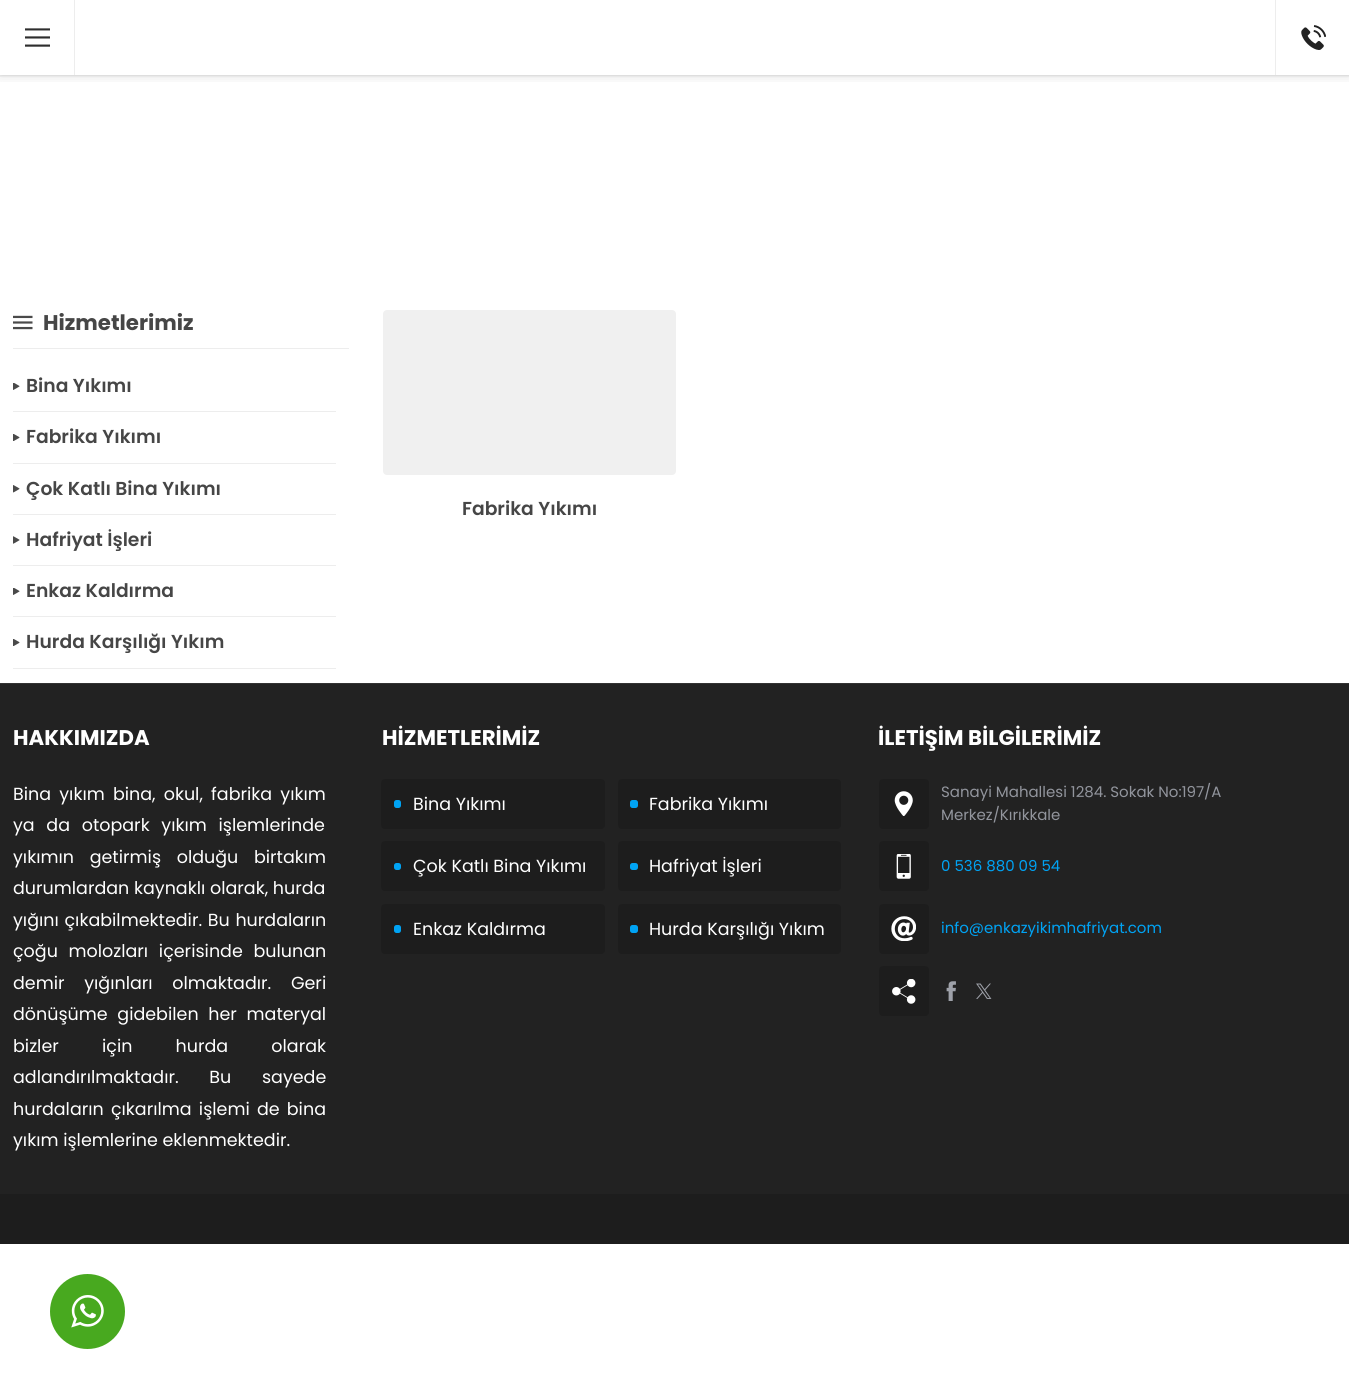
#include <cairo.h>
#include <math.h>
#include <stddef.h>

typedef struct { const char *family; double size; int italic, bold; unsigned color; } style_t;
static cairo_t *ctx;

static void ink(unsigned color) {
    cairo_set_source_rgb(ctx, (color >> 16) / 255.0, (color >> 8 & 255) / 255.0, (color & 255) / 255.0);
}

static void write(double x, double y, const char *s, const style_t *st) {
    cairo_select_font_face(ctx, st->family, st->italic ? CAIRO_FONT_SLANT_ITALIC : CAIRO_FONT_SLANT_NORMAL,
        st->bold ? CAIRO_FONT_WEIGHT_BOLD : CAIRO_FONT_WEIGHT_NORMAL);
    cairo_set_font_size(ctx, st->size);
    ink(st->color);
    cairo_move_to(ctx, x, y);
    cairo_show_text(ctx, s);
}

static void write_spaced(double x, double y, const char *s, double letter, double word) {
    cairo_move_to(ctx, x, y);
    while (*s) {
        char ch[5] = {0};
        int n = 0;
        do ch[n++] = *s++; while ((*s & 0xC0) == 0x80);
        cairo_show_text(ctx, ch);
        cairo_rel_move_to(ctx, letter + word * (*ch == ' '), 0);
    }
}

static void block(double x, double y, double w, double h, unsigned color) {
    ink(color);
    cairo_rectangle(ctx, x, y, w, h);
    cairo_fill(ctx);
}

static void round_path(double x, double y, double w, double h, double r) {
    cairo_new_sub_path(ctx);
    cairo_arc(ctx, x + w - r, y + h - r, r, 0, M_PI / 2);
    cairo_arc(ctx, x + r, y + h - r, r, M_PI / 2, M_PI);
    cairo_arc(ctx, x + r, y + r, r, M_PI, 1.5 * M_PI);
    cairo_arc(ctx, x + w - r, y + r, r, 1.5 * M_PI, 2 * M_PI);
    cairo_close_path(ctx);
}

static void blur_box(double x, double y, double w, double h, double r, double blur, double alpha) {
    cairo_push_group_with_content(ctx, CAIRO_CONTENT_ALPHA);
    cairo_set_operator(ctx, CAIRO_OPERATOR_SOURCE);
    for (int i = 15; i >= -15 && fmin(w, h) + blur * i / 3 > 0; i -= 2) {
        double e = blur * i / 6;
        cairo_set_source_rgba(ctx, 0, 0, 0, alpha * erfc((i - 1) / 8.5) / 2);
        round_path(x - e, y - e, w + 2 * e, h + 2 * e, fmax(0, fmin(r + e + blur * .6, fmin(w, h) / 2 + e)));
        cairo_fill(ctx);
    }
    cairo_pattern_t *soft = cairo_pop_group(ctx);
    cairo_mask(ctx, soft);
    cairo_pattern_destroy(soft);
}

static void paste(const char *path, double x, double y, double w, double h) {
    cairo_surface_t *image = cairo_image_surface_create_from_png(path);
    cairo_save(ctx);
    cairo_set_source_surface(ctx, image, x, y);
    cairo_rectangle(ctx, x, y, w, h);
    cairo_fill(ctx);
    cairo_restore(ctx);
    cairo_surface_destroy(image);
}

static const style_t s1 = {"Poppins", 21.25, 0, 1, 0x464646};
static const style_t s2 = {"Poppins SemiBold", 18.75, 0, 0, 0x464646};
static const style_t s3 = {"Poppins", 21.25, 0, 1, 0xffffff};
static const style_t s4 = {"Poppins", 17.5, 0, 0, 0xffffff};
static const style_t s5 = {"Poppins", 15, 0, 0, 0x92959d};
static const style_t s6 = {"Poppins", 15, 0, 0, 0x00a3f4};

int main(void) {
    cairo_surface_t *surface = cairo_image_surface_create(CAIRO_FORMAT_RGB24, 1349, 1398);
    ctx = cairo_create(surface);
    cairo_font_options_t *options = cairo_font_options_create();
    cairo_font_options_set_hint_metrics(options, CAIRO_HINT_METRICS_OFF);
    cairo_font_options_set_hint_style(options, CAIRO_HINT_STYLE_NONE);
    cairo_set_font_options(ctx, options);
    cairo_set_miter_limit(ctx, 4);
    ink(0xffffff);
    cairo_paint(ctx);
    cairo_save(ctx);
    cairo_rectangle(ctx, 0, 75, 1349, 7);
    cairo_clip(ctx);
    ink(0x000000);
    blur_box(0, 0, 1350, 75, 0, 6, 0.15);
    cairo_restore(ctx);
    cairo_save(ctx);
    cairo_rectangle(ctx, 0, 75, 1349, 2);
    cairo_clip(ctx);
    ink(0x000000);
    blur_box(0, 0, 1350, 75, 0, 2, 0.15);
    cairo_restore(ctx);
    block(74, 0, 1, 75, 0xededed);
    paste("pic1.png", 25, 28, 25, 19);
    block(1275, 0, 1, 75, 0xededed);
    paste("pic2.png", 1301, 25, 25, 25);
    block(13, 348, 336, 1, 0xededed);
    paste("pic3.png", 13, 315, 20, 15);
    write(43, 330, "Hizmetlerimiz", &s1);
    block(13, 411, 323, 1, 0xededed);
    paste("pic4.png", 13, 383, 7, 7);
    write(26, 392, "Bina Yıkımı", &s2);
    block(13, 463, 323, 1, 0xededed);
    paste("pic5.png", 13, 434, 7, 7);
    write(26, 443, "Fabrika Yıkımı", &s2);
    block(13, 514, 323, 1, 0xededed);
    paste("pic6.png", 13, 485, 7, 8);
    write(26, 495, "Çok Katlı Bina Yıkımı", &s2);
    block(13, 565, 323, 1, 0xededed);
    paste("pic7.png", 13, 536, 7, 8);
    write(26, 546, "Hafriyat İşleri", &s2);
    block(13, 616, 323, 1, 0xededed);
    paste("pic4.png", 13, 588, 7, 7);
    write(26, 597, "Enkaz Kaldırma", &s2);
    block(13, 668, 323, 1, 0xededed);
    paste("pic5.png", 13, 639, 7, 7);
    write(26, 648, "Hurda Karşılığı Yıkım", &s2);
    ink(0xf0f0f0);
    round_path(383, 310, 293, 165, 4);
    cairo_fill(ctx);
    write(462, 515, "Fabrika Yıkımı", &s2);
    block(0, 684, 1349, 510, 0x222222);
    block(0, 683, 1349, 1, 0x333333);
    write(13, 745, "HAKKIMIZDA", &s3);
    cairo_select_font_face(ctx, "Poppins", CAIRO_FONT_SLANT_NORMAL, CAIRO_FONT_WEIGHT_NORMAL);
    cairo_set_font_size(ctx, 17.5);
    write_spaced(13, 800, "Bina yıkım bina, okul, fabrika yıkım", 0, 3.5);
    write_spaced(13, 831, "ya da otopark yıkım işlemlerinde", 0, 7);
    write_spaced(13, 863, "yıkımın getirmiş olduğu birtakım", 0, 11);
    write(13, 894, "durumlardan kaynaklı olarak, hurda", &s4);
    write_spaced(13, 926, "yığını çıkabilmektedir. Bu hurdaların", 0, 1);
    write_spaced(13, 957, "çoğu molozları içerisinde bulunan", 0, 6);
    write_spaced(13, 989, "demir yığınları olmaktadır. Geri", 0, 15);
    write_spaced(13, 1020, "dönüşüme gidebilen her materyal", 0, 5);
    write_spaced(13, 1052, "bizler için hurda olarak", 0, 38.5);
    write_spaced(13, 1083, "adlandırılmaktadır. Bu sayede", 0, 26);
    write_spaced(13, 1115, "hurdaların çıkarılma işlemi de bina", 0, 2.5);
    write(13, 1146, "yıkım işlemlerine eklenmektedir.", &s4);
    write(382, 745, "HİZMETLERİMİZ", &s3);
    ink(0x1d1d1d);
    round_path(381, 779, 224, 50, 4);
    cairo_fill(ctx);
    ink(0x00a3f4);
    round_path(394, 800, 7, 8, 2.5);
    cairo_fill(ctx);
    write(413, 810, "Bina Yıkımı", &s4);
    ink(0x1d1d1d);
    round_path(618, 779, 223, 50, 4);
    cairo_fill(ctx);
    ink(0x00a3f4);
    round_path(630, 800, 8, 8, 2.5);
    cairo_fill(ctx);
    write(649, 810, "Fabrika Yıkımı", &s4);
    ink(0x1d1d1d);
    round_path(381, 841, 224, 50, 4);
    cairo_fill(ctx);
    ink(0x00a3f4);
    round_path(394, 863, 7, 7, 2.5);
    cairo_fill(ctx);
    write(413, 872, "Çok Katlı Bina Yıkımı", &s4);
    ink(0x1d1d1d);
    round_path(618, 841, 223, 50, 4);
    cairo_fill(ctx);
    ink(0x00a3f4);
    round_path(630, 863, 8, 7, 2.5);
    cairo_fill(ctx);
    write(649, 872, "Hafriyat İşleri", &s4);
    ink(0x1d1d1d);
    round_path(381, 904, 224, 50, 4);
    cairo_fill(ctx);
    ink(0x00a3f4);
    round_path(394, 925, 7, 8, 2.5);
    cairo_fill(ctx);
    write(413, 935, "Enkaz Kaldırma", &s4);
    ink(0x1d1d1d);
    round_path(618, 904, 223, 50, 4);
    cairo_fill(ctx);
    ink(0x00a3f4);
    round_path(630, 925, 8, 8, 2.5);
    cairo_fill(ctx);
    write(649, 935, "Hurda Karşılığı Yıkım", &s4);
    write(878, 745, "İLETİŞİM BİLGİLERİMİZ", &s3);
    ink(0x1d1d1d);
    round_path(879, 779, 50, 50, 4);
    cairo_fill(ctx);
    paste("pic8.png", 894, 791, 19, 25);
    write(941, 797, "Sanayi Mahallesi 1284. Sokak No:197/A", &s5);
    write(941, 820, "Merkez/Kırıkkale", &s5);
    ink(0x1d1d1d);
    round_path(879, 841, 50, 50, 4);
    cairo_fill(ctx);
    paste("pic9.png", 896, 854, 15, 25);
    write(941, 871, "0 536 880 09 54", &s6);
    ink(0x1d1d1d);
    round_path(879, 904, 50, 50, 4);
    cairo_fill(ctx);
    paste("pic10.png", 891, 916, 25, 25);
    write(941, 933, "info@enkazyikimhafriyat.com", &s6);
    ink(0x1d1d1d);
    round_path(879, 966, 50, 50, 4);
    cairo_fill(ctx);
    paste("pic11.png", 892, 979, 24, 25);
    paste("pic12.png", 946, 981, 10, 20);
    paste("pic13.png", 976, 983, 16, 16);
    block(0, 1194, 1349, 50, 0x1d1d1d);
    ink(0x48a91f);
    cairo_arc(ctx, 87.5, 1311.5, 37.5, 0, 2 * M_PI);
    cairo_fill(ctx);
    paste("pic14.png", 71, 1295, 33, 33);
    cairo_surface_write_to_png(surface, "screenshot.png");
    cairo_font_options_destroy(options);
    cairo_destroy(ctx);
    cairo_surface_destroy(surface);
    return 0;
}
